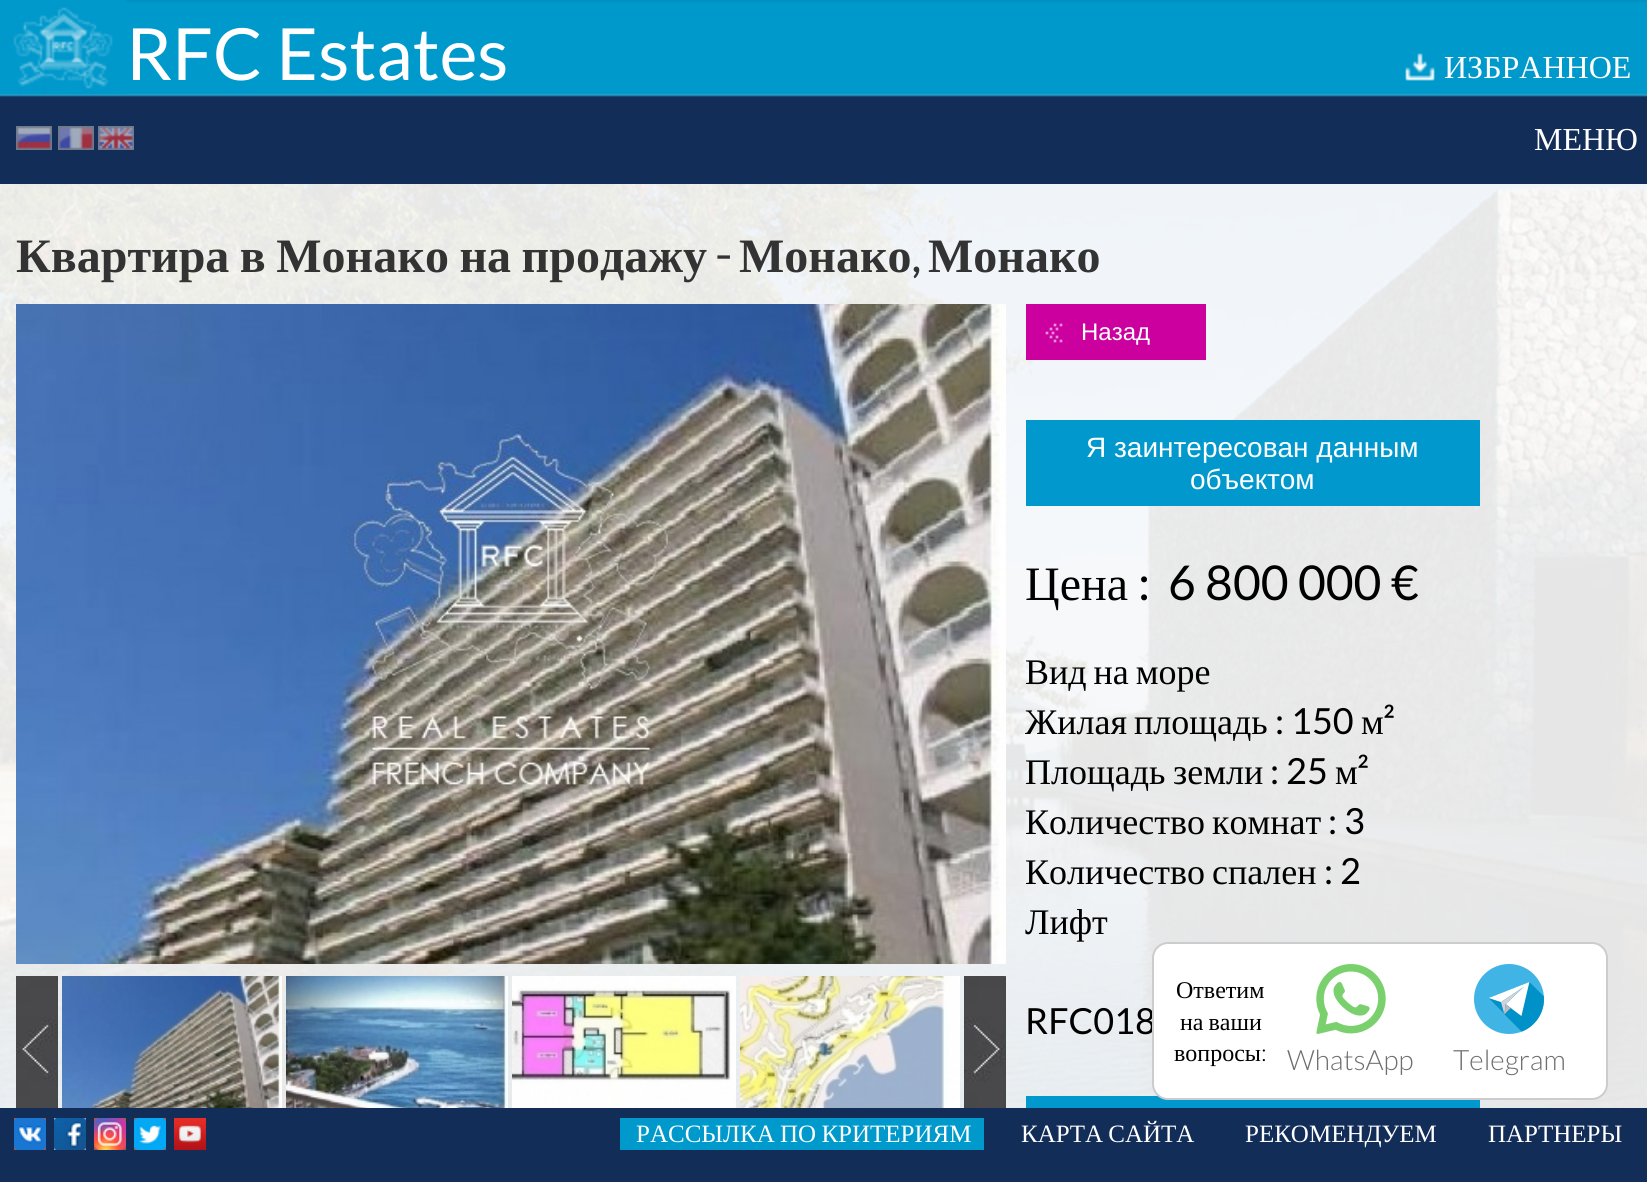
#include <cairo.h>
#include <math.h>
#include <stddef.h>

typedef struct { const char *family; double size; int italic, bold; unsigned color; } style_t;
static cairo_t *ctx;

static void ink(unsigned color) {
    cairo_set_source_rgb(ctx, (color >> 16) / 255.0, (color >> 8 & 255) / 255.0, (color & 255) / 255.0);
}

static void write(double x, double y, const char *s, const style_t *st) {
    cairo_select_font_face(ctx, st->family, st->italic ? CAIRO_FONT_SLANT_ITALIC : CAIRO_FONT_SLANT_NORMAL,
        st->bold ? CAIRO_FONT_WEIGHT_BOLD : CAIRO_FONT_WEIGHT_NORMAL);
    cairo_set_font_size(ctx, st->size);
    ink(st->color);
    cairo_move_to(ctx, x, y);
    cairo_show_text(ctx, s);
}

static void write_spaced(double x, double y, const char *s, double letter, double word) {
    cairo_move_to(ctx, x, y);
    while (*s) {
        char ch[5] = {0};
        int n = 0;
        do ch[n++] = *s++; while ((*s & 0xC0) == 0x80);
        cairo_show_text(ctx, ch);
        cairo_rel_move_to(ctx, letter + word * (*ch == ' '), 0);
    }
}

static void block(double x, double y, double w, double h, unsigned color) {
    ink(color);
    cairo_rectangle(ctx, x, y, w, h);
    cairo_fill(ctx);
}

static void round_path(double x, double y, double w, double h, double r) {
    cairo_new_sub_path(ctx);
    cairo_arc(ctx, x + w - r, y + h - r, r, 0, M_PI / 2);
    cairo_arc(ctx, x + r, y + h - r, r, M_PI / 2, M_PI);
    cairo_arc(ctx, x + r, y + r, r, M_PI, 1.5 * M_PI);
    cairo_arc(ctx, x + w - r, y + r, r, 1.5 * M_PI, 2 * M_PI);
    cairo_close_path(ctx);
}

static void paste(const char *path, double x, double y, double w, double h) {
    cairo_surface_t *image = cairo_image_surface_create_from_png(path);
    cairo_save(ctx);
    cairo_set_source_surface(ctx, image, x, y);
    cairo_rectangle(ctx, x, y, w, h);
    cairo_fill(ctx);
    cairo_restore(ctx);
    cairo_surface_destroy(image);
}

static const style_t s1 = {"Lato", 72, 0, 0, 0xffffff};
static const style_t s2 = {"Liberation Serif", 32, 0, 0, 0xffffff};
static const style_t s3 = {"Lato", 48, 0, 1, 0x333333};
static const style_t s4 = {"Liberation Serif", 48, 0, 1, 0x333333};
static const style_t s5 = {"Liberation Sans", 24, 0, 0, 0xffffff};
static const style_t s6 = {"Liberation Sans", 28, 0, 0, 0xffffff};
static const style_t s7 = {"Liberation Serif", 48, 0, 0, 0x000000};
static const style_t s8 = {"Lato", 48, 0, 0, 0x000000};
static const style_t s9 = {"Liberation Serif", 36, 0, 0, 0x000000};
static const style_t s10 = {"Lato", 36, 0, 0, 0x000000};
static const style_t s11 = {"Liberation Serif", 24, 0, 0, 0x000000};
static const style_t s12 = {"Lato Light", 24, 0, 0, 0x000000};
static const style_t s13 = {"Lato Light", 28, 0, 0, 0x6e6e6e};
static const style_t s14 = {"Liberation Serif", 25, 0, 0, 0xffffff};

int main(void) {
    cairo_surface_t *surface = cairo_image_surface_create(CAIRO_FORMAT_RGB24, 1647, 1182);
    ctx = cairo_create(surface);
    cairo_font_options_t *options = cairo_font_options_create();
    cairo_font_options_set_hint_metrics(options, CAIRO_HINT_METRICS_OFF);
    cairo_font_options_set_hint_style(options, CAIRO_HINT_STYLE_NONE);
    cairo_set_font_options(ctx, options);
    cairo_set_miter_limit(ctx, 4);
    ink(0xffffff);
    cairo_paint(ctx);
    block(0, 97, 1647, 87, 0x132d59);
    paste("pic1.png", 0, 0, 1647, 97);
    paste("pic2.png", 0, 0, 126, 94);
    write(126, 80, "RFC Estates", &s1);
    paste("pic3.png", 1405, 53, 30, 28);
    write(1444, 78, "ИЗБРАННОЕ", &s2);
    paste("pic4.png", 16, 126, 36, 24);
    paste("pic5.png", 58, 126, 36, 24);
    paste("pic6.png", 98, 126, 36, 24);
    write(1534, 150, "МЕНЮ", &s2);
    paste("pic7.png", 0, 184, 1647, 924);
    cairo_select_font_face(ctx, "Liberation Serif", CAIRO_FONT_SLANT_NORMAL, CAIRO_FONT_WEIGHT_BOLD);
    cairo_set_font_size(ctx, 48);
    ink(0x333333);
    write_spaced(16, 272, "Квартира в Монако на продажу", 0, -1.5);
    write(715, 272, "-", &s3);
    write(739, 272, "Монако", &s4);
    write(928, 272, "Монако", &s4);
    write(911, 272, ",", &s3);
    paste("pic8.png", 16, 304, 990, 660);
    block(16, 976, 42, 2, 0x49494b);
    paste("pic9.png", 16, 978, 42, 130);
    paste("pic10.png", 62, 976, 220, 132);
    paste("pic11.png", 286, 976, 222, 132);
    paste("pic12.png", 512, 976, 224, 132);
    paste("pic13.png", 740, 976, 220, 132);
    paste("pic14.png", 964, 976, 42, 132);
    block(1026, 304, 180, 56, 0xcc009f);
    paste("pic15.png", 1045, 323, 18, 20);
    write(1081, 340, "Назад", &s5);
    block(1026, 420, 454, 86, 0x0198cd);
    write(1086, 457, "Я заинтересован данным", &s6);
    write(1190, 489, "объектом", &s6);
    write(1025, 600, "Цена", &s7);
    write(1138, 600, ":", &s8);
    write(1168, 600, "6 800 000 €", &s8);
    cairo_select_font_face(ctx, "Liberation Serif", CAIRO_FONT_SLANT_NORMAL, CAIRO_FONT_WEIGHT_NORMAL);
    cairo_set_font_size(ctx, 36);
    write_spaced(1025, 684, "Вид на море", 0, -2);
    write(1025, 734, "Жилая", &s9);
    write(1134, 734, "площадь", &s9);
    write(1275, 734, ": 150", &s10);
    write(1361, 734, "м", &s9);
    write(1383, 734, "²", &s10);
    write(1025, 784, "Площадь", &s9);
    write(1173, 784, "земли", &s9);
    write(1270, 784, ": 25", &s10);
    write(1335, 784, "м", &s9);
    write(1357, 784, "²", &s10);
    write(1025, 834, "Количество", &s9);
    write(1212, 834, "комнат", &s9);
    write(1328, 834, ": 3", &s10);
    write(1025, 884, "Количество", &s9);
    write(1212, 884, "спален", &s9);
    write(1324, 884, ": 2", &s10);
    write(1025, 934, "Лифт", &s9);
    write(1025, 1034, "RFC018", &s10);
    block(1026, 1096, 454, 12, 0x0198cd);
    ink(0xffffff);
    round_path(1153, 943, 454, 156, 15);
    cairo_fill_preserve(ctx);
    ink(0xcccccc);
    cairo_stroke(ctx);
    write(1176, 998, "Ответим", &s11);
    write_spaced(1180, 1030, "на ваши", 0, -1);
    write(1174, 1061, "вопросы", &s11);
    write(1261, 1061, ":", &s12);
    paste("pic16.png", 1316, 964, 70, 70);
    write(1287, 1070, "WhatsApp", &s13);
    paste("pic17.png", 1474, 964, 70, 70);
    write(1453, 1070, "Telegram", &s13);
    block(0, 1108, 1647, 74, 0x132d59);
    paste("pic18.png", 14, 1118, 32, 32);
    paste("pic19.png", 14, 1118, 32, 32);
    paste("pic20.png", 54, 1118, 32, 32);
    paste("pic21.png", 94, 1118, 32, 32);
    paste("pic22.png", 94, 1118, 32, 32);
    paste("pic23.png", 134, 1118, 32, 32);
    paste("pic24.png", 134, 1118, 32, 32);
    paste("pic25.png", 174, 1118, 32, 32);
    block(620, 1118, 364, 32, 0x0099cc);
    cairo_select_font_face(ctx, "Liberation Serif", CAIRO_FONT_SLANT_NORMAL, CAIRO_FONT_WEIGHT_NORMAL);
    cairo_set_font_size(ctx, 25);
    ink(0xffffff);
    write_spaced(636, 1142, "РАССЫЛКА ПО КРИТЕРИЯМ", 0, -1);
    write_spaced(1021, 1142, "КАРТА САЙТА", 0, -1);
    write(1245, 1142, "РЕКОМЕНДУЕМ", &s14);
    write(1488, 1142, "ПАРТНЕРЫ", &s14);
    cairo_surface_write_to_png(surface, "screenshot.png");
    cairo_font_options_destroy(options);
    cairo_destroy(ctx);
    cairo_surface_destroy(surface);
    return 0;
}
